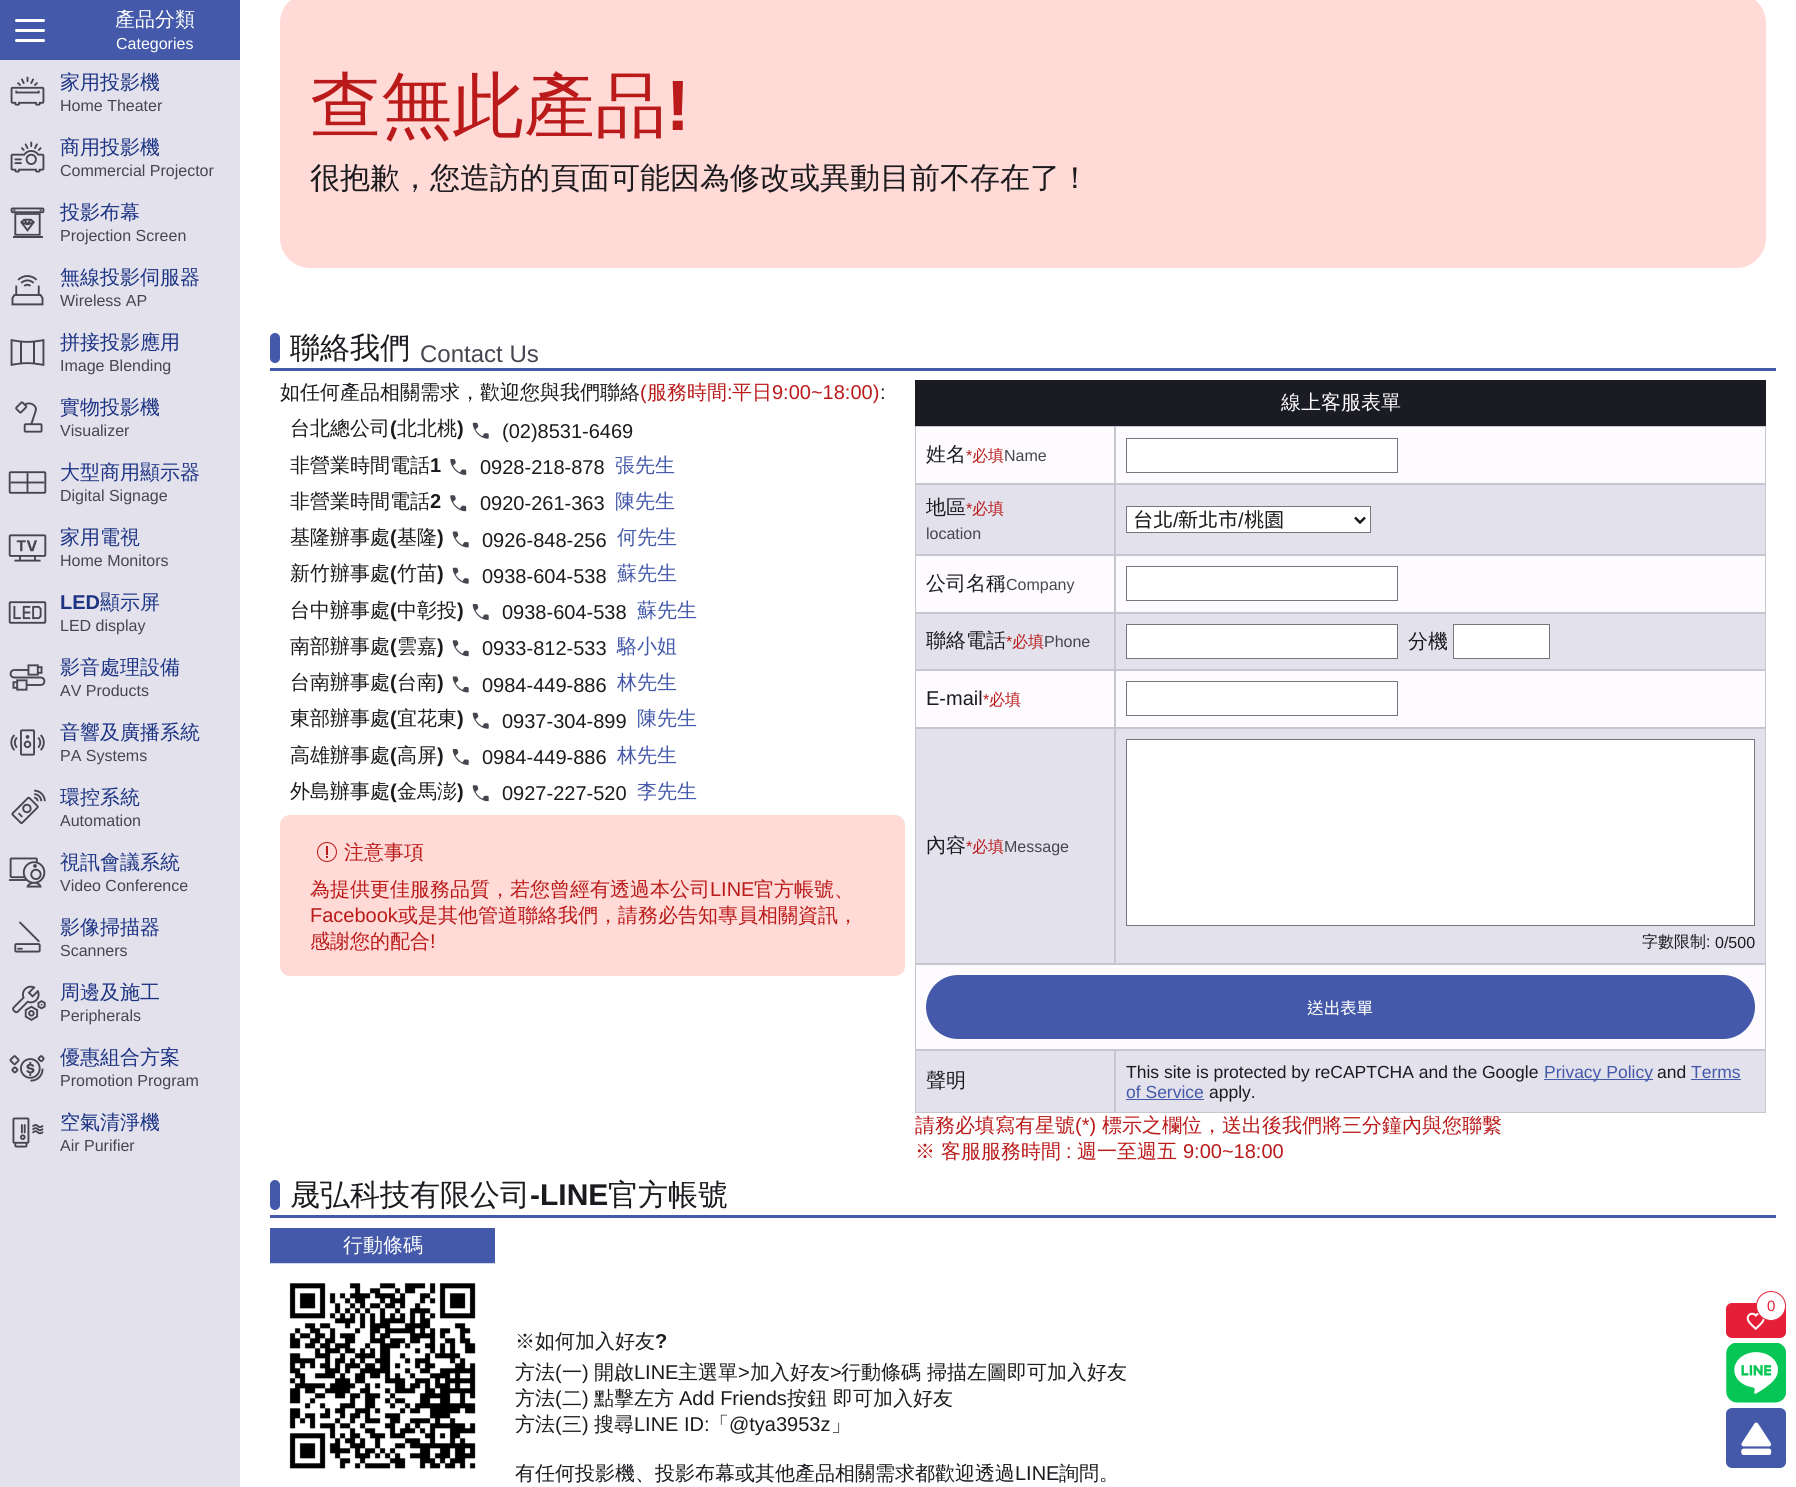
#include <cairo.h>
#include <math.h>
#include <stddef.h>

typedef struct { const char *family; double size; int italic, bold; unsigned color; } style_t;
static cairo_t *ctx;

static void ink(unsigned color) {
    cairo_set_source_rgb(ctx, (color >> 16) / 255.0, (color >> 8 & 255) / 255.0, (color & 255) / 255.0);
}

static void write(double x, double y, const char *s, const style_t *st) {
    cairo_select_font_face(ctx, st->family, st->italic ? CAIRO_FONT_SLANT_ITALIC : CAIRO_FONT_SLANT_NORMAL,
        st->bold ? CAIRO_FONT_WEIGHT_BOLD : CAIRO_FONT_WEIGHT_NORMAL);
    cairo_set_font_size(ctx, st->size);
    ink(st->color);
    cairo_move_to(ctx, x, y);
    cairo_show_text(ctx, s);
}

static void block(double x, double y, double w, double h, unsigned color) {
    ink(color);
    cairo_rectangle(ctx, x, y, w, h);
    cairo_fill(ctx);
}

static void round_path(double x, double y, double w, double h, double r) {
    cairo_new_sub_path(ctx);
    cairo_arc(ctx, x + w - r, y + h - r, r, 0, M_PI / 2);
    cairo_arc(ctx, x + r, y + h - r, r, M_PI / 2, M_PI);
    cairo_arc(ctx, x + r, y + r, r, M_PI, 1.5 * M_PI);
    cairo_arc(ctx, x + w - r, y + r, r, 1.5 * M_PI, 2 * M_PI);
    cairo_close_path(ctx);
}

static void paste(const char *path, double x, double y, double w, double h) {
    cairo_surface_t *image = cairo_image_surface_create_from_png(path);
    cairo_save(ctx);
    cairo_set_source_surface(ctx, image, x, y);
    cairo_rectangle(ctx, x, y, w, h);
    cairo_fill(ctx);
    cairo_restore(ctx);
    cairo_surface_destroy(image);
}

static const style_t s1 = {"WenQuanYi Zen Hei Medium", 20, 0, 0, 0xffffff};
static const style_t s2 = {"Liberation Sans", 16, 0, 0, 0xffffff};
static const style_t s3 = {"WenQuanYi Zen Hei Medium", 20, 0, 0, 0x1d3484};
static const style_t s4 = {"Liberation Sans", 16, 0, 0, 0x45464f};
static const style_t s5 = {"Liberation Sans", 20, 0, 1, 0x1d3484};
static const style_t s6 = {"WenQuanYi Zen Hei Medium", 71.25, 0, 0, 0xba1a1a};
static const style_t s7 = {"Liberation Sans", 71.25, 0, 1, 0xba1a1a};
static const style_t s8 = {"WenQuanYi Zen Hei Medium", 30, 0, 0, 0x1b1b1f};
static const style_t s9 = {"Liberation Sans", 24, 0, 0, 0x45464f};
static const style_t s10 = {"WenQuanYi Zen Hei Medium", 20, 0, 0, 0x1b1b1f};
static const style_t s11 = {"Liberation Sans", 20, 0, 0, 0xba1a1a};
static const style_t s12 = {"WenQuanYi Zen Hei Medium", 20, 0, 0, 0xba1a1a};
static const style_t s13 = {"Liberation Sans", 20, 0, 0, 0x1b1b1f};
static const style_t s14 = {"Liberation Sans", 20, 0, 1, 0x1b1b1f};
static const style_t s15 = {"WenQuanYi Zen Hei Medium", 20, 0, 0, 0x4459a9};
static const style_t s16 = {"Liberation Sans", 16, 0, 0, 0xba1a1a};
static const style_t s17 = {"WenQuanYi Zen Hei Medium", 16, 0, 0, 0xba1a1a};
static const style_t s18 = {"Noto Sans CJK TC", 20, 0, 0, 0x1b1b1f};
static const style_t s19 = {"WenQuanYi Zen Hei Medium", 16, 0, 0, 0x1b1b1f};
static const style_t s20 = {"Liberation Sans", 16, 0, 0, 0x1b1b1f};
static const style_t s21 = {"Noto Sans CJK TC", 16.5, 0, 0, 0xffffff};
static const style_t s22 = {"Liberation Sans", 17.5, 0, 0, 0x1b1b1f};
static const style_t s23 = {"Liberation Sans", 17.5, 0, 0, 0x4459a9};
static const style_t s24 = {"Liberation Sans", 30, 0, 1, 0x1b1b1f};
static const style_t s25 = {"Liberation Sans", 15, 0, 0, 0xe61f38};

int main(void) {
    cairo_surface_t *surface = cairo_image_surface_create(CAIRO_FORMAT_RGB24, 1796, 1487);
    ctx = cairo_create(surface);
    cairo_font_options_t *options = cairo_font_options_create();
    cairo_font_options_set_hint_metrics(options, CAIRO_HINT_METRICS_OFF);
    cairo_font_options_set_hint_style(options, CAIRO_HINT_STYLE_NONE);
    cairo_set_font_options(ctx, options);
    cairo_set_miter_limit(ctx, 4);
    ink(0xffffff);
    cairo_paint(ctx);
    block(0, 0, 240, 60, 0x4459a9);
    ink(0xffffff);
    round_path(15, 29, 30, 3, 1.5);
    cairo_fill(ctx);
    round_path(15, 19, 30, 3, 1.5);
    cairo_fill(ctx);
    round_path(15, 39, 30, 3, 1.5);
    cairo_fill(ctx);
    write(115, 26, "產品分類", &s1);
    write(116, 49, "Categories", &s2);
    block(0, 60, 240, 1427, 0xe2e1ec);
    paste("pic1.png", 10, 76, 35, 30);
    write(60, 89, "家用投影機", &s3);
    write(60, 111, "Home Theater", &s4);
    paste("pic2.png", 10, 141, 35, 32);
    write(60, 154, "商用投影機", &s3);
    write(60, 176, "Commercial Projector", &s4);
    paste("pic3.png", 10, 207, 35, 31);
    write(60, 219, "投影布幕", &s3);
    write(60, 241, "Projection Screen", &s4);
    paste("pic4.png", 11, 275, 33, 31);
    write(60, 284, "無線投影伺服器", &s3);
    write(60, 306, "Wireless AP", &s4);
    paste("pic5.png", 10, 339, 35, 27);
    write(60, 349, "拼接投影應用", &s3);
    write(60, 371, "Image Blending", &s4);
    paste("pic6.png", 15, 401, 28, 32);
    write(60, 414, "實物投影機", &s3);
    write(60, 436, "Visualizer", &s4);
    paste("pic7.png", 8, 471, 39, 23);
    write(60, 479, "大型商用顯示器", &s3);
    write(60, 501, "Digital Signage", &s4);
    paste("pic8.png", 8, 534, 39, 28);
    write(60, 544, "家用電視", &s3);
    write(60, 566, "Home Monitors", &s4);
    paste("pic9.png", 8, 601, 39, 23);
    write(60, 609, "LED", &s5);
    write(100, 609, "顯示屏", &s3);
    write(60, 631, "LED display", &s4);
    paste("pic10.png", 9, 664, 37, 27);
    write(60, 674, "影音處理設備", &s3);
    write(60, 696, "AV Products", &s4);
    paste("pic11.png", 10, 729, 35, 27);
    write(60, 739, "音響及廣播系統", &s3);
    write(60, 761, "PA Systems", &s4);
    paste("pic12.png", 11, 789, 35, 35);
    write(60, 804, "環控系統", &s3);
    write(60, 826, "Automation", &s4);
    paste("pic13.png", 8, 857, 38, 31);
    write(60, 869, "視訊會議系統", &s3);
    write(60, 891, "Video Conference", &s4);
    paste("pic14.png", 14, 921, 27, 32);
    write(60, 934, "影像掃描器", &s3);
    write(60, 956, "Scanners", &s4);
    paste("pic15.png", 12, 985, 34, 36);
    write(60, 999, "周邊及施工", &s3);
    write(60, 1021, "Peripherals", &s4);
    paste("pic16.png", 9, 1055, 36, 27);
    write(60, 1064, "優惠組合方案", &s3);
    write(60, 1086, "Promotion Program", &s4);
    paste("pic17.png", 12, 1117, 32, 31);
    write(60, 1129, "空氣清淨機", &s3);
    write(60, 1151, "Air Purifier", &s4);
    ink(0xffdad6);
    round_path(280, -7, 1486, 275, 30);
    cairo_fill(ctx);
    write(310, 130, "查無此產品", &s6);
    write(666, 130, "!", &s7);
    write(310, 188, "很抱歉，您造訪的頁面可能因為修改或異動目前不存在了！", &s8);
    block(270, 368, 1506, 3, 0x4459a9);
    round_path(270, 333, 10, 30, 5);
    cairo_fill(ctx);
    write(290, 358, "聯絡我們", &s8);
    write(420, 362, "Contact Us", &s9);
    write(280, 399, "如任何產品相關需求，歡迎您與我們聯絡", &s10);
    write(640, 399, "(", &s11);
    write(647, 399, "服務時間", &s12);
    write(727, 399, ":", &s11);
    write(732, 399, "平日", &s12);
    write(772, 399, "9:00~18:00)", &s11);
    write(880, 399, ":", &s13);
    write(290, 435, "台北總公司", &s10);
    write(390, 435, "(", &s14);
    write(397, 435, "北北桃", &s10);
    write(457, 435, ")", &s14);
    paste("pic18.png", 472, 422, 17, 17);
    write(502, 438, "(02)8531-6469", &s13);
    write(290, 472, "非營業時間電話", &s10);
    write(430, 472, "1", &s14);
    paste("pic19.png", 450, 459, 17, 16);
    write(480, 474, "0928-218-878", &s13);
    write(615, 472, "張先生", &s15);
    write(290, 508, "非營業時間電話", &s10);
    write(430, 508, "2", &s14);
    paste("pic20.png", 450, 495, 17, 17);
    write(480, 510, "0920-261-363", &s13);
    write(615, 508, "陳先生", &s15);
    write(290, 544, "基隆辦事處", &s10);
    write(390, 544, "(", &s14);
    write(397, 544, "基隆", &s10);
    write(437, 544, ")", &s14);
    paste("pic21.png", 452, 531, 17, 17);
    write(482, 547, "0926-848-256", &s13);
    write(617, 544, "何先生", &s15);
    write(290, 580, "新竹辦事處", &s10);
    write(390, 580, "(", &s14);
    write(397, 580, "竹苗", &s10);
    write(437, 580, ")", &s14);
    paste("pic18.png", 452, 567, 17, 17);
    write(482, 583, "0938-604-538", &s13);
    write(617, 580, "蘇先生", &s15);
    write(290, 617, "台中辦事處", &s10);
    write(390, 617, "(", &s14);
    write(397, 617, "中彰投", &s10);
    write(457, 617, ")", &s14);
    paste("pic22.png", 472, 604, 17, 16);
    write(502, 619, "0938-604-538", &s13);
    write(637, 617, "蘇先生", &s15);
    write(290, 653, "南部辦事處", &s10);
    write(390, 653, "(", &s14);
    write(397, 653, "雲嘉", &s10);
    write(437, 653, ")", &s14);
    paste("pic23.png", 452, 640, 17, 17);
    write(482, 655, "0933-812-533", &s13);
    write(617, 653, "駱小姐", &s15);
    write(290, 689, "台南辦事處", &s10);
    write(390, 689, "(", &s14);
    write(397, 689, "台南", &s10);
    write(437, 689, ")", &s14);
    paste("pic21.png", 452, 676, 17, 17);
    write(482, 692, "0984-449-886", &s13);
    write(617, 689, "林先生", &s15);
    write(290, 725, "東部辦事處", &s10);
    write(390, 725, "(", &s14);
    write(397, 725, "宜花東", &s10);
    write(457, 725, ")", &s14);
    paste("pic18.png", 472, 712, 17, 17);
    write(502, 728, "0937-304-899", &s13);
    write(637, 725, "陳先生", &s15);
    write(290, 762, "高雄辦事處", &s10);
    write(390, 762, "(", &s14);
    write(397, 762, "高屏", &s10);
    write(437, 762, ")", &s14);
    paste("pic22.png", 452, 749, 17, 16);
    write(482, 764, "0984-449-886", &s13);
    write(617, 762, "林先生", &s15);
    write(290, 798, "外島辦事處", &s10);
    write(390, 798, "(", &s14);
    write(397, 798, "金馬澎", &s10);
    write(457, 798, ")", &s14);
    paste("pic23.png", 472, 785, 17, 17);
    write(502, 800, "0927-227-520", &s13);
    write(637, 798, "李先生", &s15);
    ink(0xffdad6);
    round_path(280, 815, 625, 161, 10);
    cairo_fill(ctx);
    paste("pic24.png", 317, 842, 20, 20);
    write(344, 859, "注意事項", &s12);
    write(310, 896, "為提供更佳服務品質，若您曾經有透過本公司", &s12);
    write(710, 896, "LINE", &s11);
    write(754, 896, "官方帳號、", &s12);
    write(310, 922, "Facebook", &s11);
    write(398, 922, "或是其他管道聯絡我們，請務必告知專員相關資訊，", &s12);
    write(310, 948, "感謝您的配合", &s12);
    write(430, 948, "!", &s11);
    block(916, 427, 849, 622, 0xfefbff);
    block(915, 380, 851, 46, 0x1a1b23);
    write(1281, 409, "線上客服表單", &s1);
    cairo_rectangle(ctx, 915.5, 426.5, 199, 57);
    ink(0xc6c5d0);
    cairo_set_line_width(ctx, 1);
    cairo_stroke(ctx);
    write(926, 461, "姓名", &s10);
    write(966, 461, "*", &s16);
    write(972, 461, "必填", &s17);
    write(1004, 461, "Name", &s4);
    cairo_rectangle(ctx, 1115.5, 426.5, 650, 57);
    ink(0xc6c5d0);
    cairo_stroke(ctx);
    ink(0xffffff);
    cairo_rectangle(ctx, 1126.5, 438.5, 271, 34);
    cairo_fill_preserve(ctx);
    ink(0x767680);
    cairo_stroke(ctx);
    block(916, 485, 849, 69, 0xe2e1ec);
    cairo_rectangle(ctx, 915.5, 484.5, 199, 70);
    ink(0xc6c5d0);
    cairo_stroke(ctx);
    write(926, 514, "地區", &s10);
    write(966, 514, "*", &s16);
    write(972, 514, "必填", &s17);
    write(926, 539, "location", &s4);
    cairo_rectangle(ctx, 1115.5, 484.5, 650, 70);
    ink(0xc6c5d0);
    cairo_stroke(ctx);
    ink(0xffffff);
    cairo_rectangle(ctx, 1126.5, 506.5, 244, 26);
    cairo_fill_preserve(ctx);
    ink(0x767680);
    cairo_stroke(ctx);
    cairo_new_path(ctx);
    cairo_move_to(ctx, 1355, 517.5);
    cairo_line_to(ctx, 1360, 522.5);
    cairo_line_to(ctx, 1365, 517.5);
    ink(0x1b1b1f);
    cairo_set_line_width(ctx, 2.5);
    cairo_stroke(ctx);
    write(1133, 527, "台北", &s18);
    write(1173, 527, "/", &s13);
    write(1178, 527, "新北市", &s18);
    write(1238, 527, "/", &s13);
    write(1244, 527, "桃園", &s18);
    cairo_rectangle(ctx, 915.5, 555.5, 199, 57);
    ink(0xc6c5d0);
    cairo_set_line_width(ctx, 1);
    cairo_stroke(ctx);
    write(926, 590, "公司名稱", &s10);
    write(1006, 590, "Company", &s4);
    cairo_rectangle(ctx, 1115.5, 555.5, 650, 57);
    ink(0xc6c5d0);
    cairo_stroke(ctx);
    ink(0xffffff);
    cairo_rectangle(ctx, 1126.5, 566.5, 271, 34);
    cairo_fill_preserve(ctx);
    ink(0x767680);
    cairo_stroke(ctx);
    block(916, 614, 849, 55, 0xe2e1ec);
    cairo_rectangle(ctx, 915.5, 613.5, 199, 56);
    ink(0xc6c5d0);
    cairo_stroke(ctx);
    write(926, 647, "聯絡電話", &s10);
    write(1006, 647, "*", &s16);
    write(1012, 647, "必填", &s17);
    write(1044, 647, "Phone", &s4);
    cairo_rectangle(ctx, 1115.5, 613.5, 650, 56);
    ink(0xc6c5d0);
    cairo_stroke(ctx);
    ink(0xffffff);
    cairo_rectangle(ctx, 1126.5, 624.5, 271, 34);
    cairo_fill_preserve(ctx);
    ink(0x767680);
    cairo_stroke(ctx);
    write(1408, 648, "分機", &s10);
    ink(0xffffff);
    cairo_rectangle(ctx, 1453.5, 624.5, 96, 34);
    cairo_fill_preserve(ctx);
    ink(0x767680);
    cairo_stroke(ctx);
    cairo_rectangle(ctx, 915.5, 670.5, 199, 57);
    ink(0xc6c5d0);
    cairo_stroke(ctx);
    write(926, 705, "E-mail", &s13);
    write(983, 705, "*", &s16);
    write(989, 705, "必填", &s17);
    cairo_rectangle(ctx, 1115.5, 670.5, 650, 57);
    ink(0xc6c5d0);
    cairo_stroke(ctx);
    ink(0xffffff);
    cairo_rectangle(ctx, 1126.5, 681.5, 271, 34);
    cairo_fill_preserve(ctx);
    ink(0x767680);
    cairo_stroke(ctx);
    block(916, 729, 849, 234, 0xe2e1ec);
    cairo_rectangle(ctx, 915.5, 728.5, 199, 235);
    ink(0xc6c5d0);
    cairo_stroke(ctx);
    write(926, 852, "內容", &s10);
    write(966, 852, "*", &s16);
    write(972, 852, "必填", &s17);
    write(1004, 852, "Message", &s4);
    cairo_rectangle(ctx, 1115.5, 728.5, 650, 235);
    ink(0xc6c5d0);
    cairo_stroke(ctx);
    ink(0xffffff);
    cairo_rectangle(ctx, 1126.5, 739.5, 628, 186);
    cairo_fill_preserve(ctx);
    ink(0x767680);
    cairo_stroke(ctx);
    write(1642, 947, "字數限制", &s19);
    write(1706, 947, ":", &s20);
    write(1715, 948, "0/500", &s20);
    cairo_rectangle(ctx, 915.5, 964.5, 850, 85);
    ink(0xc6c5d0);
    cairo_stroke(ctx);
    ink(0x4459a9);
    round_path(926, 975, 829, 64, 32);
    cairo_fill(ctx);
    write(1307, 1014, "送出表單", &s21);
    block(916, 1051, 849, 61, 0xe2e1ec);
    cairo_rectangle(ctx, 915.5, 1050.5, 199, 62);
    ink(0xc6c5d0);
    cairo_stroke(ctx);
    write(926, 1087, "聲明", &s10);
    cairo_rectangle(ctx, 1115.5, 1050.5, 650, 62);
    ink(0xc6c5d0);
    cairo_stroke(ctx);
    write(1126, 1078, "This site is protected by reCAPTCHA and the Google", &s22);
    block(1544, 1079, 109, 1, 0x4459a9);
    write(1544, 1078, "Privacy Policy", &s23);
    write(1657, 1078, "and", &s22);
    write(1691, 1078, "Terms", &s23);
    block(1691, 1079, 50, 1, 0x4459a9);
    write(1126, 1098, "of Service", &s23);
    block(1126, 1099, 78, 1, 0x4459a9);
    write(1209, 1098, "apply.", &s22);
    write(915, 1132, "請務必填寫有星號", &s12);
    write(1075, 1132, "(*)", &s11);
    write(1102, 1132, "標示之欄位，送出後我們將三分鐘內與您聯繫", &s12);
    write(915, 1158, "※ 客服服務時間", &s12);
    write(1066, 1158, ":", &s11);
    write(1077, 1158, "週一至週五", &s12);
    write(1183, 1158, "9:00~18:00", &s11);
    block(270, 1215, 1506, 3, 0x4459a9);
    round_path(270, 1180, 10, 30, 5);
    cairo_fill(ctx);
    write(290, 1205, "晟弘科技有限公司", &s8);
    write(530, 1205, "-LINE", &s24);
    write(608, 1205, "官方帳號", &s8);
    block(270, 1228, 225, 36, 0x4459a9);
    write(343, 1252, "行動條碼", &s1);
    paste("pic25.png", 270, 1263, 225, 206);
    write(515, 1348, "※如何加入好友", &s10);
    write(655, 1348, "?", &s14);
    write(515, 1379, "方法", &s10);
    write(555, 1379, "(", &s13);
    write(562, 1379, "一", &s10);
    write(582, 1379, ")", &s13);
    write(594, 1379, "開啟", &s10);
    write(634, 1379, "LINE", &s13);
    write(678, 1379, "主選單", &s10);
    write(738, 1379, ">", &s13);
    write(750, 1379, "加入好友", &s10);
    write(830, 1379, ">", &s13);
    write(841, 1379, "行動條碼 掃描左圖即可加入好友", &s10);
    write(515, 1405, "方法", &s10);
    write(555, 1405, "(", &s13);
    write(562, 1405, "二", &s10);
    write(582, 1405, ")", &s13);
    write(594, 1405, "點擊左方", &s10);
    write(679, 1405, "Add Friends", &s13);
    write(787, 1405, "按鈕", &s10);
    write(833, 1405, "即可加入好友", &s10);
    write(515, 1431, "方法", &s10);
    write(555, 1431, "(", &s13);
    write(562, 1431, "三", &s10);
    write(582, 1431, ")", &s13);
    write(594, 1431, "搜尋", &s10);
    write(634, 1431, "LINE ID:", &s13);
    write(709, 1431, "「", &s10);
    write(729, 1431, "@tya3953z", &s13);
    write(831, 1431, "」", &s10);
    write(515, 1480, "有任何投影機、投影布幕或其他產品相關需求都歡迎透過", &s10);
    write(1015, 1480, "LINE", &s13);
    write(1059, 1480, "詢問。", &s10);
    ink(0xe61f38);
    round_path(1726, 1303, 60, 35, 6);
    cairo_fill(ctx);
    paste("pic26.png", 1746, 1312, 19, 18);
    ink(0xffffff);
    cairo_arc(ctx, 1771, 1306, 14.5, 0, 2 * M_PI);
    cairo_fill_preserve(ctx);
    ink(0xe61f38);
    cairo_stroke(ctx);
    write(1767, 1311, "0", &s25);
    paste("pic27.png", 1726, 1343, 60, 60);
    ink(0x4459a9);
    round_path(1726, 1408, 60, 60, 6);
    cairo_fill(ctx);
    paste("pic28.png", 1741, 1422, 31, 33);
    cairo_surface_write_to_png(surface, "screenshot.png");
    cairo_font_options_destroy(options);
    cairo_destroy(ctx);
    cairo_surface_destroy(surface);
    return 0;
}
